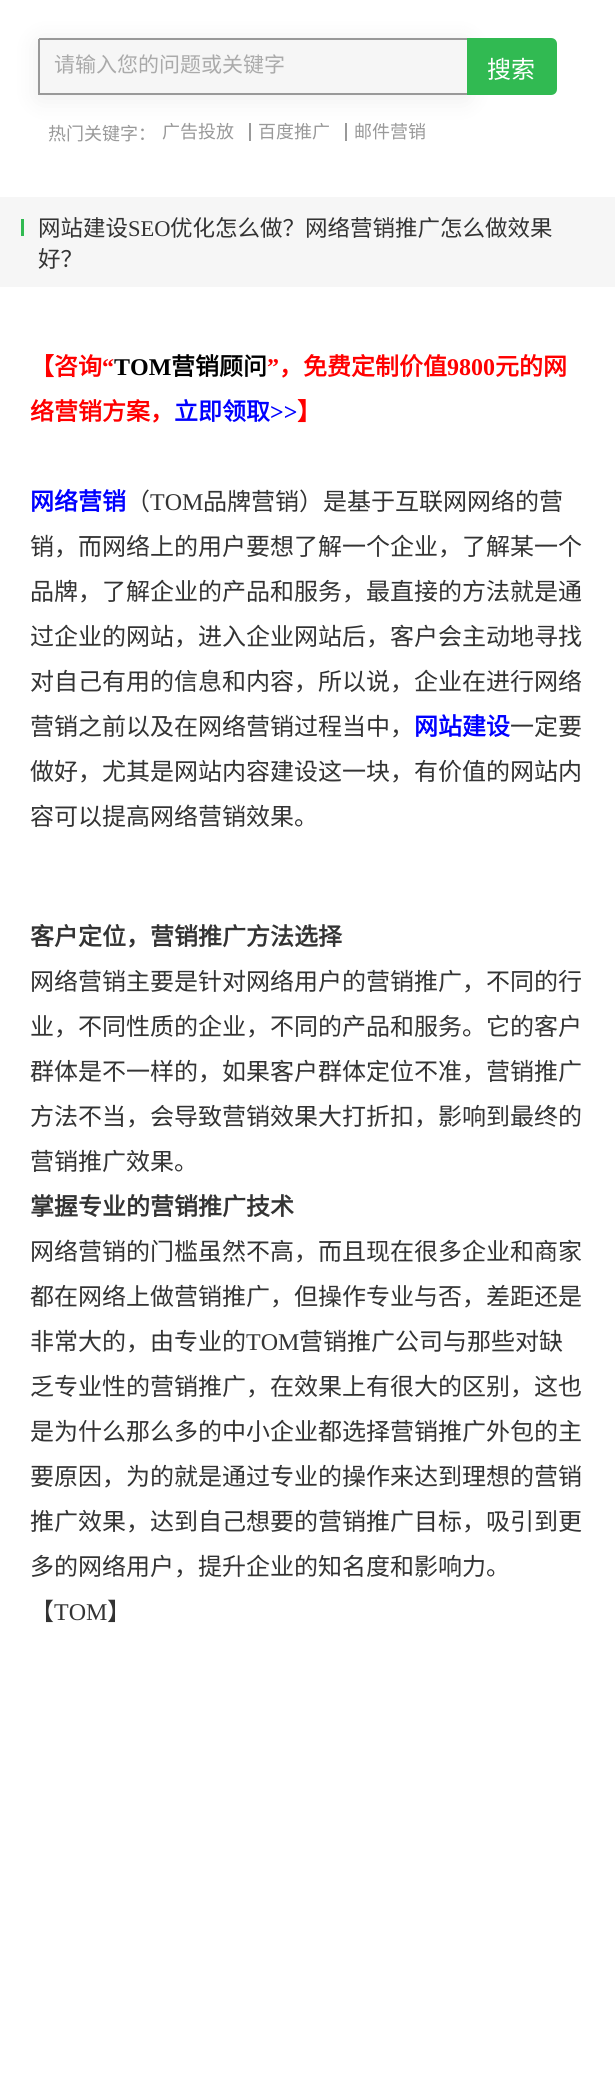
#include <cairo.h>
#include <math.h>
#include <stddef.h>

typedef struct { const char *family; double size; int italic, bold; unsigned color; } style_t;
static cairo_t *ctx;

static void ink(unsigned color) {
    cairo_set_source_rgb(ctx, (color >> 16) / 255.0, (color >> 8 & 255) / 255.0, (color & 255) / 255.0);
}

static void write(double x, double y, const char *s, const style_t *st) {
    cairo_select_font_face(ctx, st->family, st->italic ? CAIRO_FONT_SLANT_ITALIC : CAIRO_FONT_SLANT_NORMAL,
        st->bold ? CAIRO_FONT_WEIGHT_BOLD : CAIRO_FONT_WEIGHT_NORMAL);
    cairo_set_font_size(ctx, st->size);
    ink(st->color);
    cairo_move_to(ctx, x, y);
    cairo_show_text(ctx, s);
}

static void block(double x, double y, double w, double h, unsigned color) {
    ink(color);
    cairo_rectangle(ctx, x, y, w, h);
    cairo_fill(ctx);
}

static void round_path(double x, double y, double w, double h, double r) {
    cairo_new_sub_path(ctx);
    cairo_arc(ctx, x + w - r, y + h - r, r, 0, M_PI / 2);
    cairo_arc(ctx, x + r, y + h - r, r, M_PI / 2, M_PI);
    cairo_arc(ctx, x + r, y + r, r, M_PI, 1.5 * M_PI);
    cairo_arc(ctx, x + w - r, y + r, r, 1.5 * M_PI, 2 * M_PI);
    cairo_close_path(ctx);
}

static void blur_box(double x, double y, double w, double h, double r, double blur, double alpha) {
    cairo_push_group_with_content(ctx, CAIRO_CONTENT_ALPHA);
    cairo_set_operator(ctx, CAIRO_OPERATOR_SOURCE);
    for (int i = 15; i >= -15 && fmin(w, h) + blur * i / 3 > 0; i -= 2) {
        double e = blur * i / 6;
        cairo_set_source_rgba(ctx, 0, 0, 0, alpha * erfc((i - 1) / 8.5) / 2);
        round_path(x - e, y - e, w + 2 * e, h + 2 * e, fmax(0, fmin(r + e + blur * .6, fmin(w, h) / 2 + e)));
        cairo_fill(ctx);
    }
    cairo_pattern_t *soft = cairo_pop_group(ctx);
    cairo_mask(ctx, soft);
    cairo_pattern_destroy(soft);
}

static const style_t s1 = {"Noto Sans CJK SC", 21, 0, 0, 0xaaaaaa};
static const style_t s2 = {"Noto Sans CJK SC", 24, 0, 0, 0xffffff};
static const style_t s3 = {"Noto Sans CJK SC", 18, 0, 0, 0x999999};
static const style_t s4 = {"Noto Sans CJK SC", 22.5, 0, 0, 0x333333};
static const style_t s5 = {"Liberation Serif", 22.5, 0, 0, 0x333333};
static const style_t s6 = {"Noto Sans CJK SC", 24, 0, 1, 0xff0000};
static const style_t s7 = {"Liberation Serif", 24, 0, 1, 0xff0000};
static const style_t s8 = {"Liberation Serif", 24, 0, 1, 0x000000};
static const style_t s9 = {"Noto Sans CJK SC", 24, 0, 1, 0x000000};
static const style_t s10 = {"Noto Sans CJK SC", 24, 0, 1, 0x0000ff};
static const style_t s11 = {"Liberation Serif", 24, 0, 1, 0x0000ff};
static const style_t s12 = {"Noto Sans CJK SC", 24, 0, 0, 0x333333};
static const style_t s13 = {"Liberation Serif", 24, 0, 0, 0x333333};
static const style_t s14 = {"Noto Sans CJK SC", 24, 0, 1, 0x333333};

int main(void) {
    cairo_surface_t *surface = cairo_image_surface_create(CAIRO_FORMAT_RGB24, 615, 2099);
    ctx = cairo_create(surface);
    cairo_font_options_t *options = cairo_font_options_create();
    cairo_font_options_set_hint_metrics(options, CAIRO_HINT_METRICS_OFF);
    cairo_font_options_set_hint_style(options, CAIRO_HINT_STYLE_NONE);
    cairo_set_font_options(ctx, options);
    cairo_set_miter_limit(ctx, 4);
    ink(0xffffff);
    cairo_paint(ctx);
    block(249, 123, 2, 18, 0x999999);
    block(345, 123, 2, 18, 0x999999);
    ink(0x000000);
    blur_box(35, 39, 436, 63, 5, 12, 0.06);
    block(40, 40, 427, 53, 0xf6f6f6);
    block(39, 38, 429, 2, 0x999999);
    block(39, 93, 429, 2, 0x999999);
    block(38, 39, 2, 56, 0x999999);
    write(54, 72, "请输入您的问题或关键字", &s1);
    ink(0x31ba52);
    cairo_new_path(ctx);
    cairo_move_to(ctx, 467, 38);
    cairo_line_to(ctx, 551, 38);
    cairo_curve_to(ctx, 554.5, 38, 557, 40.5, 557, 44);
    cairo_line_to(ctx, 557, 89);
    cairo_curve_to(ctx, 557, 92.5, 554.5, 95, 551, 95);
    cairo_line_to(ctx, 467, 95);
    cairo_close_path(ctx);
    cairo_fill(ctx);
    write(487, 78, "搜索", &s2);
    write(48, 140, "热门关键字：", &s3);
    write(162, 138, "广告投放", &s3);
    write(258, 138, "百度推广", &s3);
    write(354, 138, "邮件营销", &s3);
    block(0, 197, 615, 90, 0xf6f6f6);
    block(21, 219, 3, 17, 0x31ba52);
    write(38, 236, "网站建设", &s4);
    write(128, 236, "SEO", &s5);
    write(170, 236, "优化怎么做？网络营销推广怎么做效果", &s4);
    write(38, 267, "好？", &s4);
    write(30, 375, "【咨询", &s6);
    write(102, 375, "“", &s7);
    write(114, 375, "TOM", &s8);
    write(171, 375, "营销顾问", &s9);
    write(267, 375, "”", &s7);
    write(279, 375, "，免费定制价值", &s6);
    write(447, 375, "9800", &s7);
    write(495, 375, "元的网", &s6);
    write(30, 420, "络营销方案，", &s6);
    write(174, 420, "立即领取", &s10);
    write(270, 420, ">>", &s11);
    write(297, 420, "】", &s6);
    write(30, 510, "网络营销", &s10);
    write(126, 510, "（", &s12);
    write(150, 510, "TOM", &s13);
    write(203, 510, "品牌营销）是基于互联网网络的营", &s12);
    write(30, 555, "销，而网络上的用户要想了解一个企业，了解某一个", &s12);
    write(30, 600, "品牌，了解企业的产品和服务，最直接的方法就是通", &s12);
    write(30, 645, "过企业的网站，进入企业网站后，客户会主动地寻找", &s12);
    write(30, 690, "对自己有用的信息和内容，所以说，企业在进行网络", &s12);
    write(30, 735, "营销之前以及在网络营销过程当中，", &s12);
    write(414, 735, "网站建设", &s10);
    write(510, 735, "一定要", &s12);
    write(30, 780, "做好，尤其是网站内容建设这一块，有价值的网站内", &s12);
    write(30, 825, "容可以提高网络营销效果。", &s12);
    write(30, 945, "客户定位，营销推广方法选择", &s14);
    write(30, 990, "网络营销主要是针对网络用户的营销推广，不同的行", &s12);
    write(30, 1035, "业，不同性质的企业，不同的产品和服务。它的客户", &s12);
    write(30, 1080, "群体是不一样的，如果客户群体定位不准，营销推广", &s12);
    write(30, 1125, "方法不当，会导致营销效果大打折扣，影响到最终的", &s12);
    write(30, 1170, "营销推广效果。", &s12);
    write(30, 1215, "掌握专业的营销推广技术", &s14);
    write(30, 1260, "网络营销的门槛虽然不高，而且现在很多企业和商家", &s12);
    write(30, 1305, "都在网络上做营销推广，但操作专业与否，差距还是", &s12);
    write(30, 1350, "非常大的，由专业的", &s12);
    write(246, 1350, "TOM", &s13);
    write(299, 1350, "营销推广公司与那些对缺", &s12);
    write(30, 1395, "乏专业性的营销推广，在效果上有很大的区别，这也", &s12);
    write(30, 1440, "是为什么那么多的中小企业都选择营销推广外包的主", &s12);
    write(30, 1485, "要原因，为的就是通过专业的操作来达到理想的营销", &s12);
    write(30, 1530, "推广效果，达到自己想要的营销推广目标，吸引到更", &s12);
    write(30, 1575, "多的网络用户，提升企业的知名度和影响力。", &s12);
    write(30, 1620, "【", &s12);
    write(54, 1620, "TOM", &s13);
    write(107, 1620, "】", &s12);
    cairo_surface_write_to_png(surface, "screenshot.png");
    cairo_font_options_destroy(options);
    cairo_destroy(ctx);
    cairo_surface_destroy(surface);
    return 0;
}
